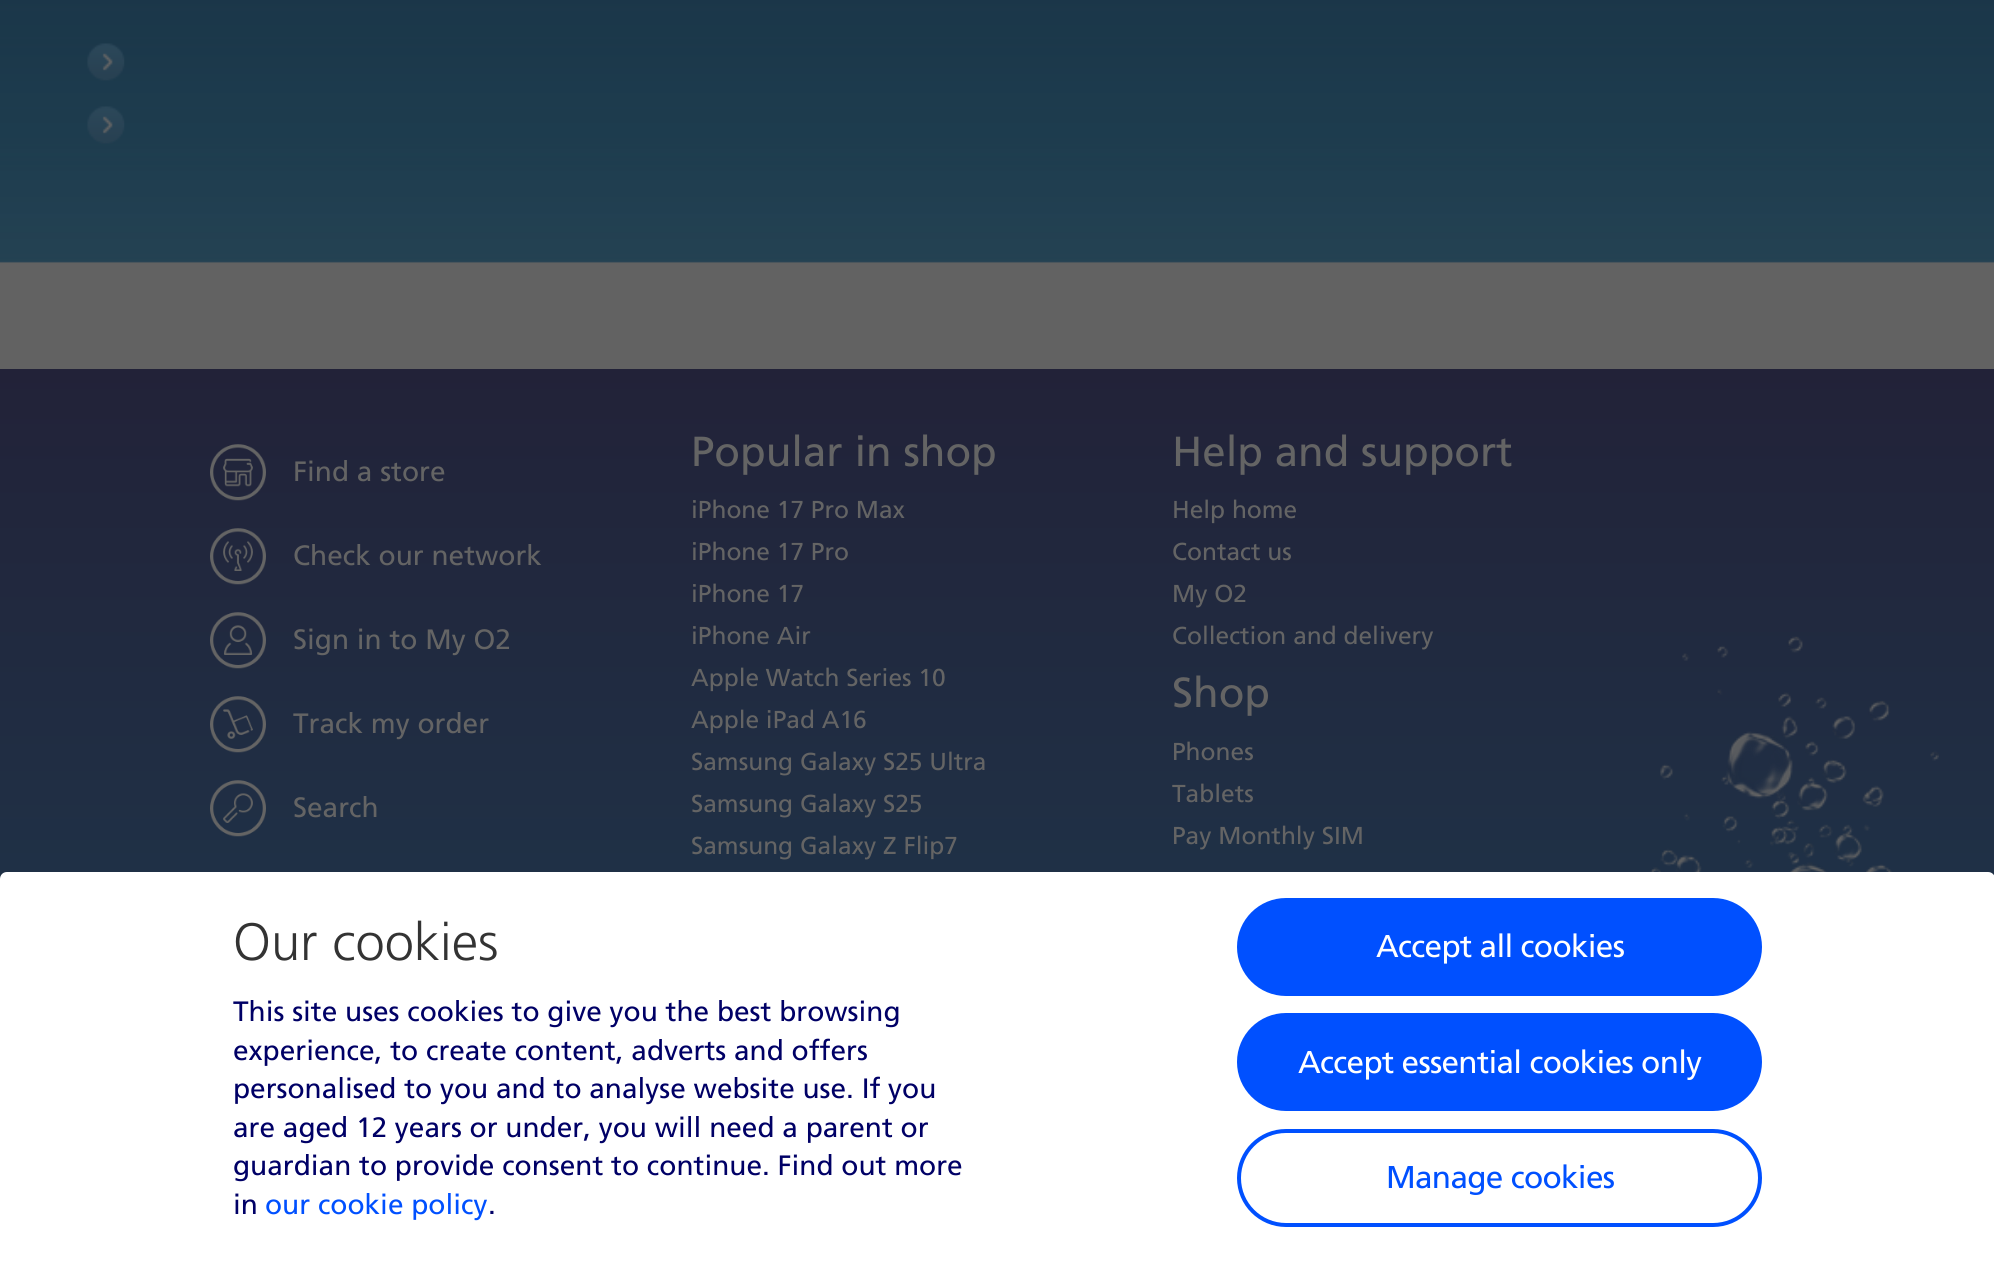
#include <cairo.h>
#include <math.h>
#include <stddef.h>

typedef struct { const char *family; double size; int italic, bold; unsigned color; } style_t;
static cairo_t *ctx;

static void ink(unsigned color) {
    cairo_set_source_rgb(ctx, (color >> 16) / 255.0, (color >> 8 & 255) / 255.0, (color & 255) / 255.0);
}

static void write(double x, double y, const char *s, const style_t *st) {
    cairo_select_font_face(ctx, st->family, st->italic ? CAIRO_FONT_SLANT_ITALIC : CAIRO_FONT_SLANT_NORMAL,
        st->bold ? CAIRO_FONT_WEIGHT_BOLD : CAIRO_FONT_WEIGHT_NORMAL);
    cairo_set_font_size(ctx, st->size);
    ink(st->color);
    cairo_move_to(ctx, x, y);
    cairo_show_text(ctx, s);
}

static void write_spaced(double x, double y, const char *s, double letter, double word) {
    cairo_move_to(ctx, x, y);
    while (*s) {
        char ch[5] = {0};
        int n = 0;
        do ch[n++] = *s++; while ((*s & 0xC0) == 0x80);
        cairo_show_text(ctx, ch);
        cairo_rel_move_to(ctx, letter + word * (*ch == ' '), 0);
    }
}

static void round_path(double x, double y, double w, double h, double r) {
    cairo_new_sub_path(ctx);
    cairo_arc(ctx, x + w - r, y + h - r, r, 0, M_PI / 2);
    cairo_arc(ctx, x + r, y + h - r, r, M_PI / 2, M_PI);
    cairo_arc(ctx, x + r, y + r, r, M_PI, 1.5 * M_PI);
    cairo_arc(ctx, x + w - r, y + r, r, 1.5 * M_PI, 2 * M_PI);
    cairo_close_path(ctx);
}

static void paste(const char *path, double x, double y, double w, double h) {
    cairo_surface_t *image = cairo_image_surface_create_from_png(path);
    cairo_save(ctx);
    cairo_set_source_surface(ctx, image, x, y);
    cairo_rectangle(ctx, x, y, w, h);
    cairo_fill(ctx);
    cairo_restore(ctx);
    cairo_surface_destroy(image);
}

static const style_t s1 = {"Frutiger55", 28, 0, 0, 0x646464};
static const style_t s2 = {"Frutiger55", 42, 0, 0, 0x646464};
static const style_t s3 = {"Frutiger55", 24.5, 0, 0, 0x646464};
static const style_t s4 = {"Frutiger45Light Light", 52.5, 0, 0, 0x333333};
static const style_t s5 = {"Frutiger55", 28, 0, 0, 0x000066};
static const style_t s6 = {"Frutiger55", 28, 0, 0, 0x0050ff};

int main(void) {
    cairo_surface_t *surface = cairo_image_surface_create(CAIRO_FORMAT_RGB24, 1994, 1270);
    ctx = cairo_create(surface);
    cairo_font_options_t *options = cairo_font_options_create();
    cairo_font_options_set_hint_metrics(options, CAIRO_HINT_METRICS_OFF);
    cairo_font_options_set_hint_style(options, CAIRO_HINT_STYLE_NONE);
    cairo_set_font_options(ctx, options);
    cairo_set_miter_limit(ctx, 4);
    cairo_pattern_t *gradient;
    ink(0x626262);
    cairo_paint(ctx);
    paste("pic1.png", 0, 0, 1994, 332);
    paste("pic2.png", 87, 43, 38, 38);
    paste("pic3.png", 87, 106, 38, 38);
    gradient = cairo_pattern_create_linear(998, 369, 998, 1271);
    cairo_pattern_add_color_stop_rgba(gradient, 0, 0.133, 0.133, 0.22, 1);
    cairo_pattern_add_color_stop_rgba(gradient, 1, 0.114, 0.235, 0.318, 1);
    cairo_set_source(ctx, gradient);
    cairo_pattern_destroy(gradient);
    cairo_rectangle(ctx, 0, 369, 1994, 510);
    cairo_fill(ctx);
    paste("pic4.png", 1650, 636, 289, 236);
    paste("pic5.png", 210, 444, 56, 57);
    write(293, 481, "Find a store", &s1);
    paste("pic6.png", 210, 528, 56, 57);
    write(293, 565, "Check our network", &s1);
    paste("pic7.png", 210, 612, 56, 57);
    write(293, 649, "Sign in to My O2", &s1);
    paste("pic8.png", 210, 696, 56, 57);
    write(293, 733, "Track my order", &s1);
    paste("pic9.png", 210, 780, 56, 57);
    write(293, 817, "Search", &s1);
    write(691, 466, "Popular in shop", &s2);
    write(691, 518, "iPhone 17 Pro Max", &s3);
    write(691, 560, "iPhone 17 Pro", &s3);
    write(691, 602, "iPhone 17", &s3);
    write(691, 644, "iPhone Air", &s3);
    write(691, 686, "Apple Watch Series 10", &s3);
    write(691, 728, "Apple iPad A16", &s3);
    write(691, 770, "Samsung Galaxy S25 Ultra", &s3);
    write(691, 812, "Samsung Galaxy S25", &s3);
    write(691, 854, "Samsung Galaxy Z Flip7", &s3);
    write(1172, 466, "Help and support", &s2);
    write(1172, 518, "Help home", &s3);
    write(1172, 560, "Contact us", &s3);
    write(1172, 602, "My O2", &s3);
    write(1172, 644, "Collection and delivery", &s3);
    write(1172, 707, "Shop", &s2);
    write(1172, 760, "Phones", &s3);
    write(1172, 802, "Tablets", &s3);
    write(1172, 844, "Pay Monthly SIM", &s3);
    ink(0xffffff);
    cairo_new_path(ctx);
    cairo_move_to(ctx, 7, 872);
    cairo_line_to(ctx, 1988, 872);
    cairo_curve_to(ctx, 1992, 872, 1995, 875, 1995, 879);
    cairo_line_to(ctx, 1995, 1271);
    cairo_line_to(ctx, 0, 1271);
    cairo_line_to(ctx, 0, 879);
    cairo_curve_to(ctx, 0, 875, 3, 872, 7, 872);
    cairo_close_path(ctx);
    cairo_fill(ctx);
    write(233, 960, "Our cookies", &s4);
    write(233, 1021, "This site uses cookies to give you the best browsing", &s5);
    write(233, 1060, "experience, to create content, adverts and offers", &s5);
    write(233, 1098, "personalised to you and to analyse website use. If you", &s5);
    write(233, 1137, "are aged 12 years or under, you will need a parent or", &s5);
    write(233, 1175, "guardian to provide consent to continue. Find out more", &s5);
    write(233, 1214, "in", &s5);
    write(265, 1214, "our cookie policy", &s6);
    write(488, 1214, ".", &s5);
    ink(0x0050ff);
    round_path(1237, 898, 525, 98, 49);
    cairo_fill(ctx);
    cairo_set_font_size(ctx, 31.5);
    ink(0xffffff);
    write_spaced(1376, 957, "Accept all cookies", -0.7, 0);
    ink(0x0050ff);
    round_path(1237, 1013, 525, 98, 49);
    cairo_fill(ctx);
    ink(0xffffff);
    write_spaced(1298, 1073, "Accept essential cookies only", -0.7, 0);
    round_path(1239, 1131, 521, 94, 47);
    ink(0x0050ff);
    cairo_set_line_width(ctx, 4);
    cairo_stroke(ctx);
    write_spaced(1386, 1188, "Manage cookies", -0.7, 0);
    cairo_surface_write_to_png(surface, "screenshot.png");
    cairo_font_options_destroy(options);
    cairo_destroy(ctx);
    cairo_surface_destroy(surface);
    return 0;
}
